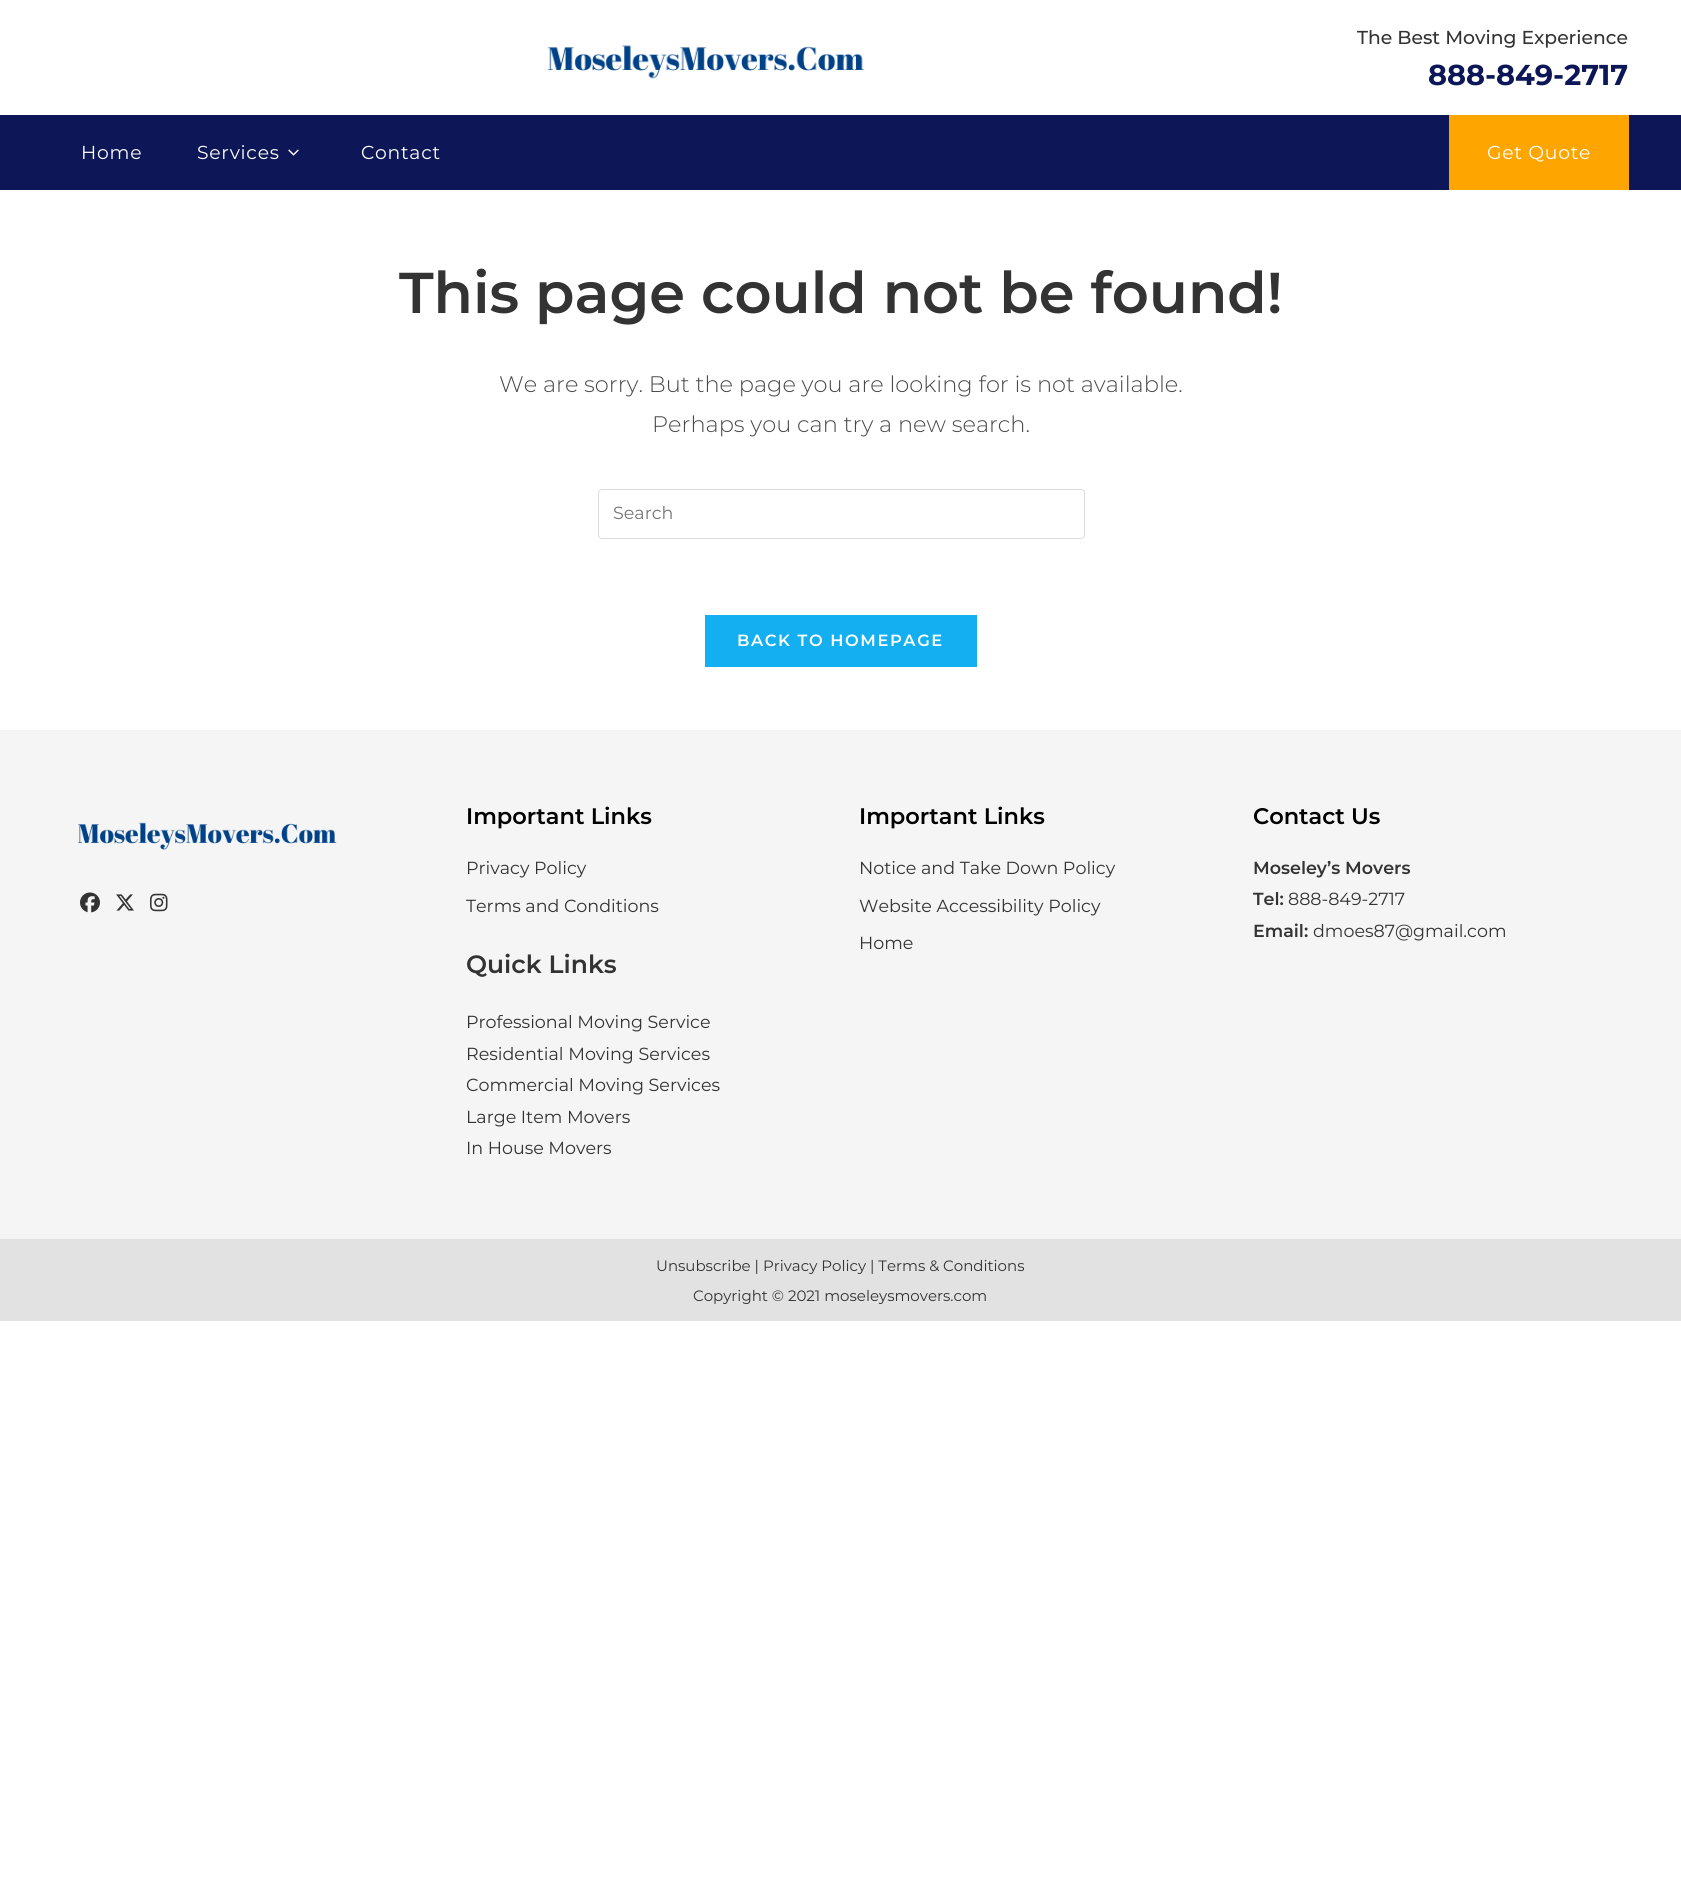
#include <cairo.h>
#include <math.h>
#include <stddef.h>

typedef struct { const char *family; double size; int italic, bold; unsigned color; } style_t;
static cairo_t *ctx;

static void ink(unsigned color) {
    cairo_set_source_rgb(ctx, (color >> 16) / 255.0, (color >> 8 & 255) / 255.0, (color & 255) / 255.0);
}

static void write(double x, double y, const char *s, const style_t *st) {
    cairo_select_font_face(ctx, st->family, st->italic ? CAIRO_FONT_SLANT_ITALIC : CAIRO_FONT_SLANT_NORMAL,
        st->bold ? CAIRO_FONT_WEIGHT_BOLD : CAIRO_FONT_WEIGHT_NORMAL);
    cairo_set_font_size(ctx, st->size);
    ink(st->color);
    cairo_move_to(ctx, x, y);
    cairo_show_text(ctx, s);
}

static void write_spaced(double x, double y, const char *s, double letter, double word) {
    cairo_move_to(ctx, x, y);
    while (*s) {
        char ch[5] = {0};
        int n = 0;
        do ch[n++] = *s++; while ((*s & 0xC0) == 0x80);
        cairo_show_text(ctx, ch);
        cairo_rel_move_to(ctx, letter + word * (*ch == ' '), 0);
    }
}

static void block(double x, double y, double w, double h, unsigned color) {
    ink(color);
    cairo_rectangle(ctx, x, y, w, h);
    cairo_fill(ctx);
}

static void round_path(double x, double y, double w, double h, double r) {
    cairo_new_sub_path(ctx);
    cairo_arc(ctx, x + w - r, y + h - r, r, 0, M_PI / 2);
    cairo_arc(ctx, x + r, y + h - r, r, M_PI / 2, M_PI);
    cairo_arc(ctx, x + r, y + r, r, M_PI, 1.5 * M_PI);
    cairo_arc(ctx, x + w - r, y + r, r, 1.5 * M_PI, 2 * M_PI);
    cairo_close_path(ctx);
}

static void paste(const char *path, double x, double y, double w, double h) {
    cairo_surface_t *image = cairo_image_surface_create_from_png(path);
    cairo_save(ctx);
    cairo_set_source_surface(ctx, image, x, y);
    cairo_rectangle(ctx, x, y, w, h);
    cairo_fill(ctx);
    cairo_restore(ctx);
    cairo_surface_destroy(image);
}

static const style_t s1 = {"Montserrat Medium", 18.75, 0, 0, 0x333333};
static const style_t s2 = {"Montserrat", 28.75, 0, 1, 0x0d1757};
static const style_t s3 = {"Montserrat SemiBold", 57.5, 0, 0, 0x333333};
static const style_t s4 = {"Montserrat Light", 22.5, 0, 0, 0x4a4a4a};
static const style_t s5 = {"Montserrat", 17.5, 0, 0, 0x757575};
static const style_t s6 = {"Montserrat SemiBold", 22.5, 0, 0, 0x000000};
static const style_t s7 = {"Montserrat", 17.5, 0, 0, 0x333333};
static const style_t s8 = {"Montserrat SemiBold", 25, 0, 0, 0x333333};
static const style_t s9 = {"Montserrat SemiBold", 17.5, 0, 0, 0x333333};
static const style_t s10 = {"Montserrat", 15, 0, 0, 0x333333};

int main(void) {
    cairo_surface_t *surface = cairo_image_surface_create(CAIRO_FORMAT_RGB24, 1681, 1877);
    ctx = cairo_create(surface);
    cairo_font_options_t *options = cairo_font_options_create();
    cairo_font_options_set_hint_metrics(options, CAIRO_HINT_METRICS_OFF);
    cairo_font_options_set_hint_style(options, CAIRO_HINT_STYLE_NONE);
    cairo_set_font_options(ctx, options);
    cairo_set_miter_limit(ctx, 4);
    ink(0xffffff);
    cairo_paint(ctx);
    paste("pic1.png", 547, 45, 318, 34);
    write(1357, 44, "The Best Moving Experience", &s1);
    write(1428, 85, "888-849-2717", &s2);
    block(0, 115, 1681, 75, 0x0d1757);
    cairo_select_font_face(ctx, "Montserrat", CAIRO_FONT_SLANT_NORMAL, CAIRO_FONT_WEIGHT_NORMAL);
    cairo_set_font_size(ctx, 18.75);
    ink(0xffffff);
    write_spaced(81, 159, "Home", 0.75, 0);
    write_spaced(197, 159, "Services", 0.75, 0);
    paste("pic2.png", 288, 149, 11, 7);
    write_spaced(361, 159, "Contact", 0.75, 0);
    block(1449, 115, 180, 75, 0xffa500);
    ink(0xffffff);
    write_spaced(1487, 159, "Get Quote", 0.75, 0);
    write(399, 313, "This page could not be found!", &s3);
    write(499, 392, "We are sorry. But the page you are looking for is not available.", &s4);
    write(652, 432, "Perhaps you can try a new search.", &s4);
    round_path(598.5, 489.5, 486, 49, 3.5);
    ink(0xdddddd);
    cairo_set_line_width(ctx, 1);
    cairo_stroke(ctx);
    write(613, 519, "Search", &s5);
    block(705, 615, 272, 52, 0x13aff0);
    cairo_select_font_face(ctx, "Montserrat SemiBold", CAIRO_FONT_SLANT_NORMAL, CAIRO_FONT_WEIGHT_NORMAL);
    cairo_set_font_size(ctx, 16.25);
    ink(0xffffff);
    write_spaced(737, 646, "BACK TO HOMEPAGE", 1.6, 0);
    block(0, 730, 1681, 509, 0xf5f5f5);
    paste("pic3.png", 78, 822, 259, 28);
    paste("pic4.png", 80, 892, 20, 21);
    paste("pic5.png", 116, 894, 18, 17);
    paste("pic6.png", 150, 893, 18, 19);
    write(466, 824, "Important Links", &s6);
    write(466, 874, "Privacy Policy", &s7);
    write(466, 912, "Terms and Conditions", &s7);
    write(466, 973, "Quick Links", &s8);
    write(466, 1028, "Professional Moving Service", &s7);
    write(466, 1060, "Residential Moving Services", &s7);
    write(466, 1091, "Commercial Moving Services", &s7);
    write(466, 1123, "Large Item Movers", &s7);
    write(466, 1154, "In House Movers", &s7);
    write(859, 824, "Important Links", &s6);
    write(859, 874, "Notice and Take Down Policy", &s7);
    write(859, 912, "Website Accessibility Policy", &s7);
    write(859, 949, "Home", &s7);
    write(1253, 824, "Contact Us", &s6);
    write(1253, 874, "Moseley’s Movers", &s9);
    write(1253, 905, "Tel:", &s9);
    write(1288, 905, "888-849-2717", &s7);
    write(1253, 937, "Email:", &s9);
    write(1313, 937, "dmoes87@gmail.com", &s7);
    block(0, 1239, 1681, 82, 0xe2e2e2);
    write(656, 1271, "Unsubscribe | Privacy Policy | Terms & Conditions", &s10);
    write(693, 1301, "Copyright © 2021 moseleysmovers.com", &s10);
    cairo_surface_write_to_png(surface, "screenshot.png");
    cairo_font_options_destroy(options);
    cairo_destroy(ctx);
    cairo_surface_destroy(surface);
    return 0;
}
